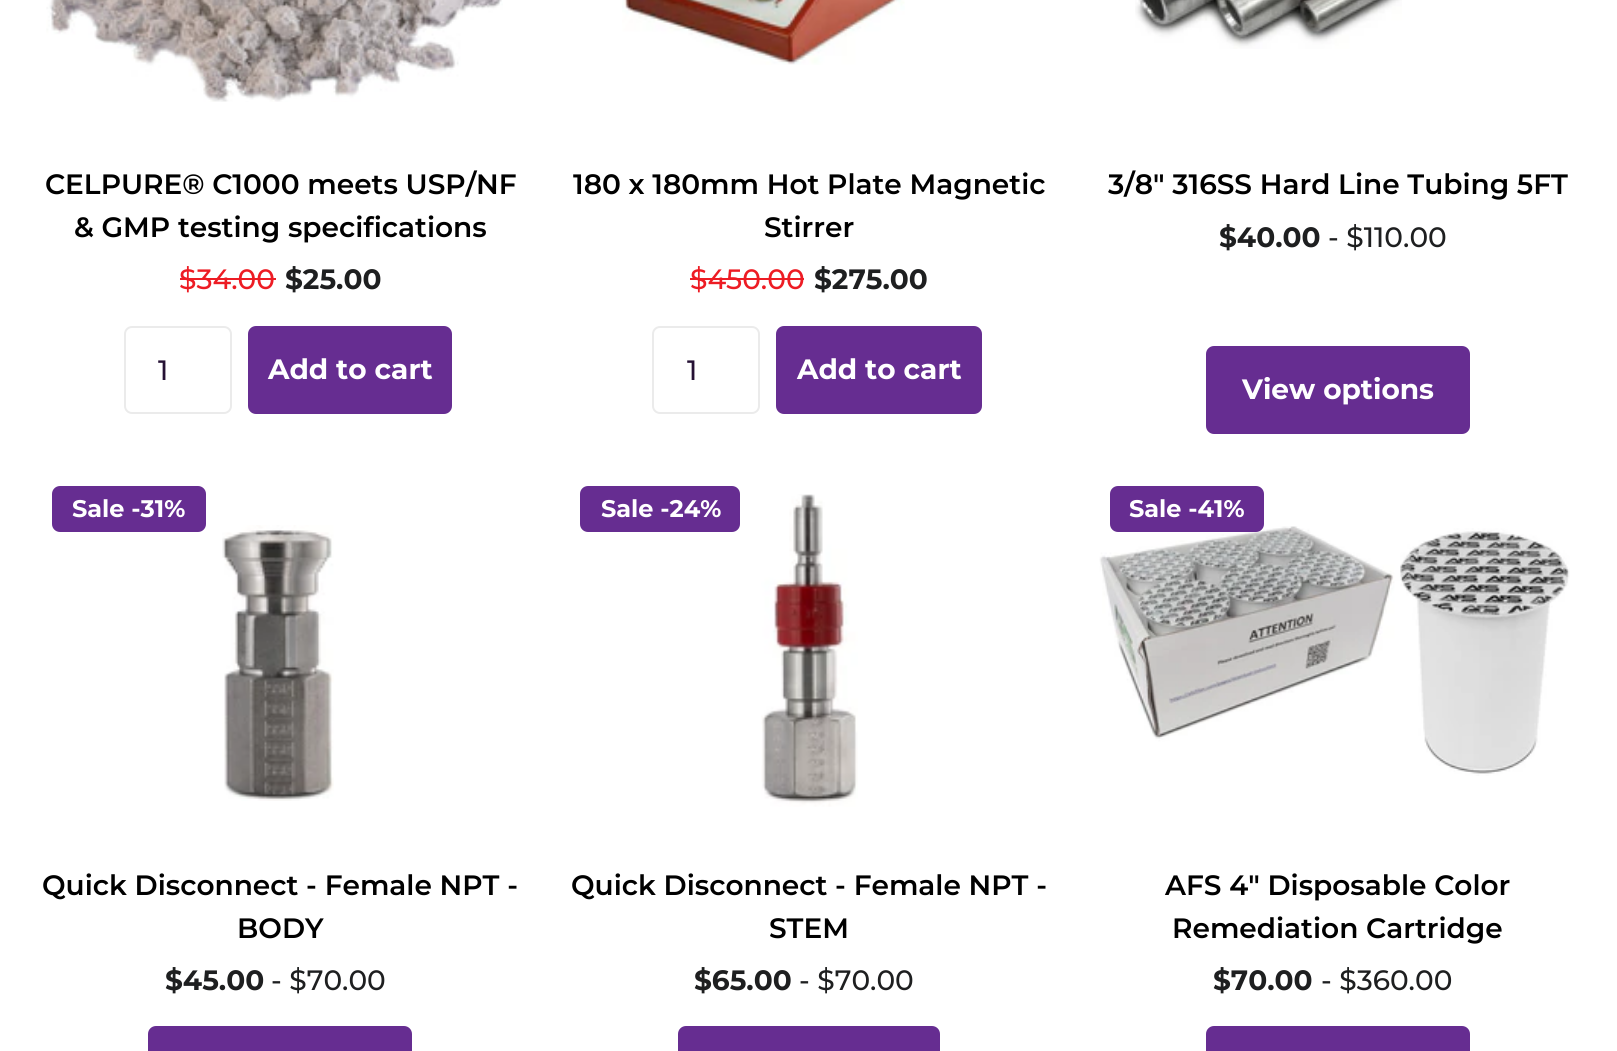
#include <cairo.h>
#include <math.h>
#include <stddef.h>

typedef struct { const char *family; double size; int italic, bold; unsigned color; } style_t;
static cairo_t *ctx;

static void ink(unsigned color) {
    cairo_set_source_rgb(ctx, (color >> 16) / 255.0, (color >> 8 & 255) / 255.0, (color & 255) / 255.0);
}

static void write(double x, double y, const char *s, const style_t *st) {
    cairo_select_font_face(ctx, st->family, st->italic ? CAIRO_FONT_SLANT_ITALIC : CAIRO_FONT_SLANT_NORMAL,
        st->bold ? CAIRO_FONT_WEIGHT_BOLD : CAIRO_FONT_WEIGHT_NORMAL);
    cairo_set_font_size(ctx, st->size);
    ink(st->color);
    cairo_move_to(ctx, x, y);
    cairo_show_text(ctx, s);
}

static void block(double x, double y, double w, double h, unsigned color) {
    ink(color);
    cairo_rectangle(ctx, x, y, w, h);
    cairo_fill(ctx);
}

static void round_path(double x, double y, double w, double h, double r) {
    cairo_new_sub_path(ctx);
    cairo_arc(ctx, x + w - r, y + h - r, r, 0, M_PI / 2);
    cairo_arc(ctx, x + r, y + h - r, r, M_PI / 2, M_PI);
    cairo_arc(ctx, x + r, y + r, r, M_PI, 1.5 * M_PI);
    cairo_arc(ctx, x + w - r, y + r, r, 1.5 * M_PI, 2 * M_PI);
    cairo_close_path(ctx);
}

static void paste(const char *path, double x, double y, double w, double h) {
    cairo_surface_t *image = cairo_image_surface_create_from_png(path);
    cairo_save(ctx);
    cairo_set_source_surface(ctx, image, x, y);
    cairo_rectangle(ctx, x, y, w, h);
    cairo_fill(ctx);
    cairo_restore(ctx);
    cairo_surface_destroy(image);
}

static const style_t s1 = {"Montserrat SemiBold", 28, 0, 0, 0x000000};
static const style_t s2 = {"Montserrat Medium", 28, 0, 0, 0xed1c24};
static const style_t s3 = {"Montserrat", 28, 0, 1, 0x1e1f20};
static const style_t s4 = {"Montserrat Medium", 28, 0, 0, 0x251134};
static const style_t s5 = {"Montserrat", 28, 0, 1, 0xffffff};
static const style_t s6 = {"Montserrat Medium", 28, 0, 0, 0x1e1f20};
static const style_t s7 = {"Montserrat", 24, 0, 1, 0xffffff};

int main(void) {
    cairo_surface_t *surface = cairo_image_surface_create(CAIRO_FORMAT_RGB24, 1617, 1051);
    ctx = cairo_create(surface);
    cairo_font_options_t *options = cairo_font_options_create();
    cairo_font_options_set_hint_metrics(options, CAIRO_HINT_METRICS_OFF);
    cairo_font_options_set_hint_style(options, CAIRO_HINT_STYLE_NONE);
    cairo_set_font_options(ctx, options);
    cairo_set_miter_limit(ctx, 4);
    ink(0xffffff);
    cairo_paint(ctx);
    paste("pic1.png", 46, 0, 457, 102);
    write(45, 194, "CELPURE® C1000 meets USP/NF", &s1);
    write(74, 237, "& GMP testing specifications", &s1);
    write(179, 289, "$34.00", &s2);
    block(180, 278, 96, 2, 0xed1c24);
    write(285, 289, "$25.00", &s3);
    round_path(125, 327, 106, 86, 7);
    ink(0xebebeb);
    cairo_stroke(ctx);
    write(158, 380, "1", &s4);
    ink(0x662d91);
    round_path(248, 326, 204, 88, 8);
    cairo_fill(ctx);
    write(268, 379, "Add to cart", &s5);
    paste("pic2.png", 622, 0, 283, 65);
    write(573, 194, "180 x 180mm Hot Plate Magnetic", &s1);
    write(764, 237, "Stirrer", &s1);
    write(690, 289, "$450.00", &s2);
    block(690, 278, 114, 2, 0xed1c24);
    write(814, 289, "$275.00", &s3);
    round_path(653, 327, 106, 86, 7);
    ink(0xebebeb);
    cairo_stroke(ctx);
    write(687, 380, "1", &s4);
    ink(0x662d91);
    round_path(776, 326, 206, 88, 8);
    cairo_fill(ctx);
    write(797, 379, "Add to cart", &s5);
    paste("pic3.png", 1135, 0, 267, 49);
    write(1108, 194, "3/8\" 316SS Hard Line Tubing 5FT", &s1);
    write(1219, 247, "$40.00", &s3);
    write(1328, 247, "- $110.00", &s6);
    ink(0x662d91);
    round_path(1206, 346, 264, 88, 8);
    cairo_fill(ctx);
    write(1242, 399, "View options", &s5);
    ink(0x662d91);
    round_path(52, 486, 154, 46, 8);
    cairo_fill(ctx);
    write(72, 517, "Sale -31%", &s7);
    paste("pic4.png", 222, 525, 112, 276);
    write(42, 895, "Quick Disconnect - Female NPT -", &s1);
    write(237, 938, "BODY", &s1);
    write(165, 990, "$45.00", &s3);
    write(271, 990, "- $70.00", &s6);
    ink(0x662d91);
    round_path(148, 1026, 264, 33, 8);
    cairo_fill(ctx);
    round_path(580, 486, 160, 46, 8);
    cairo_fill(ctx);
    write(601, 517, "Sale -24%", &s7);
    paste("pic5.png", 761, 494, 97, 313);
    write(571, 895, "Quick Disconnect - Female NPT -", &s1);
    write(769, 938, "STEM", &s1);
    write(694, 990, "$65.00", &s3);
    write(799, 990, "- $70.00", &s6);
    ink(0x662d91);
    round_path(678, 1026, 262, 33, 8);
    cairo_fill(ctx);
    paste("pic6.png", 1099, 526, 471, 250);
    round_path(1110, 486, 154, 46, 8);
    cairo_fill(ctx);
    write(1129, 517, "Sale -41%", &s7);
    write(1165, 895, "AFS 4\" Disposable Color", &s1);
    write(1172, 938, "Remediation Cartridge", &s1);
    write(1213, 990, "$70.00", &s3);
    write(1321, 990, "- $360.00", &s6);
    ink(0x662d91);
    round_path(1206, 1026, 264, 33, 8);
    cairo_fill(ctx);
    cairo_surface_write_to_png(surface, "screenshot.png");
    cairo_font_options_destroy(options);
    cairo_destroy(ctx);
    cairo_surface_destroy(surface);
    return 0;
}
